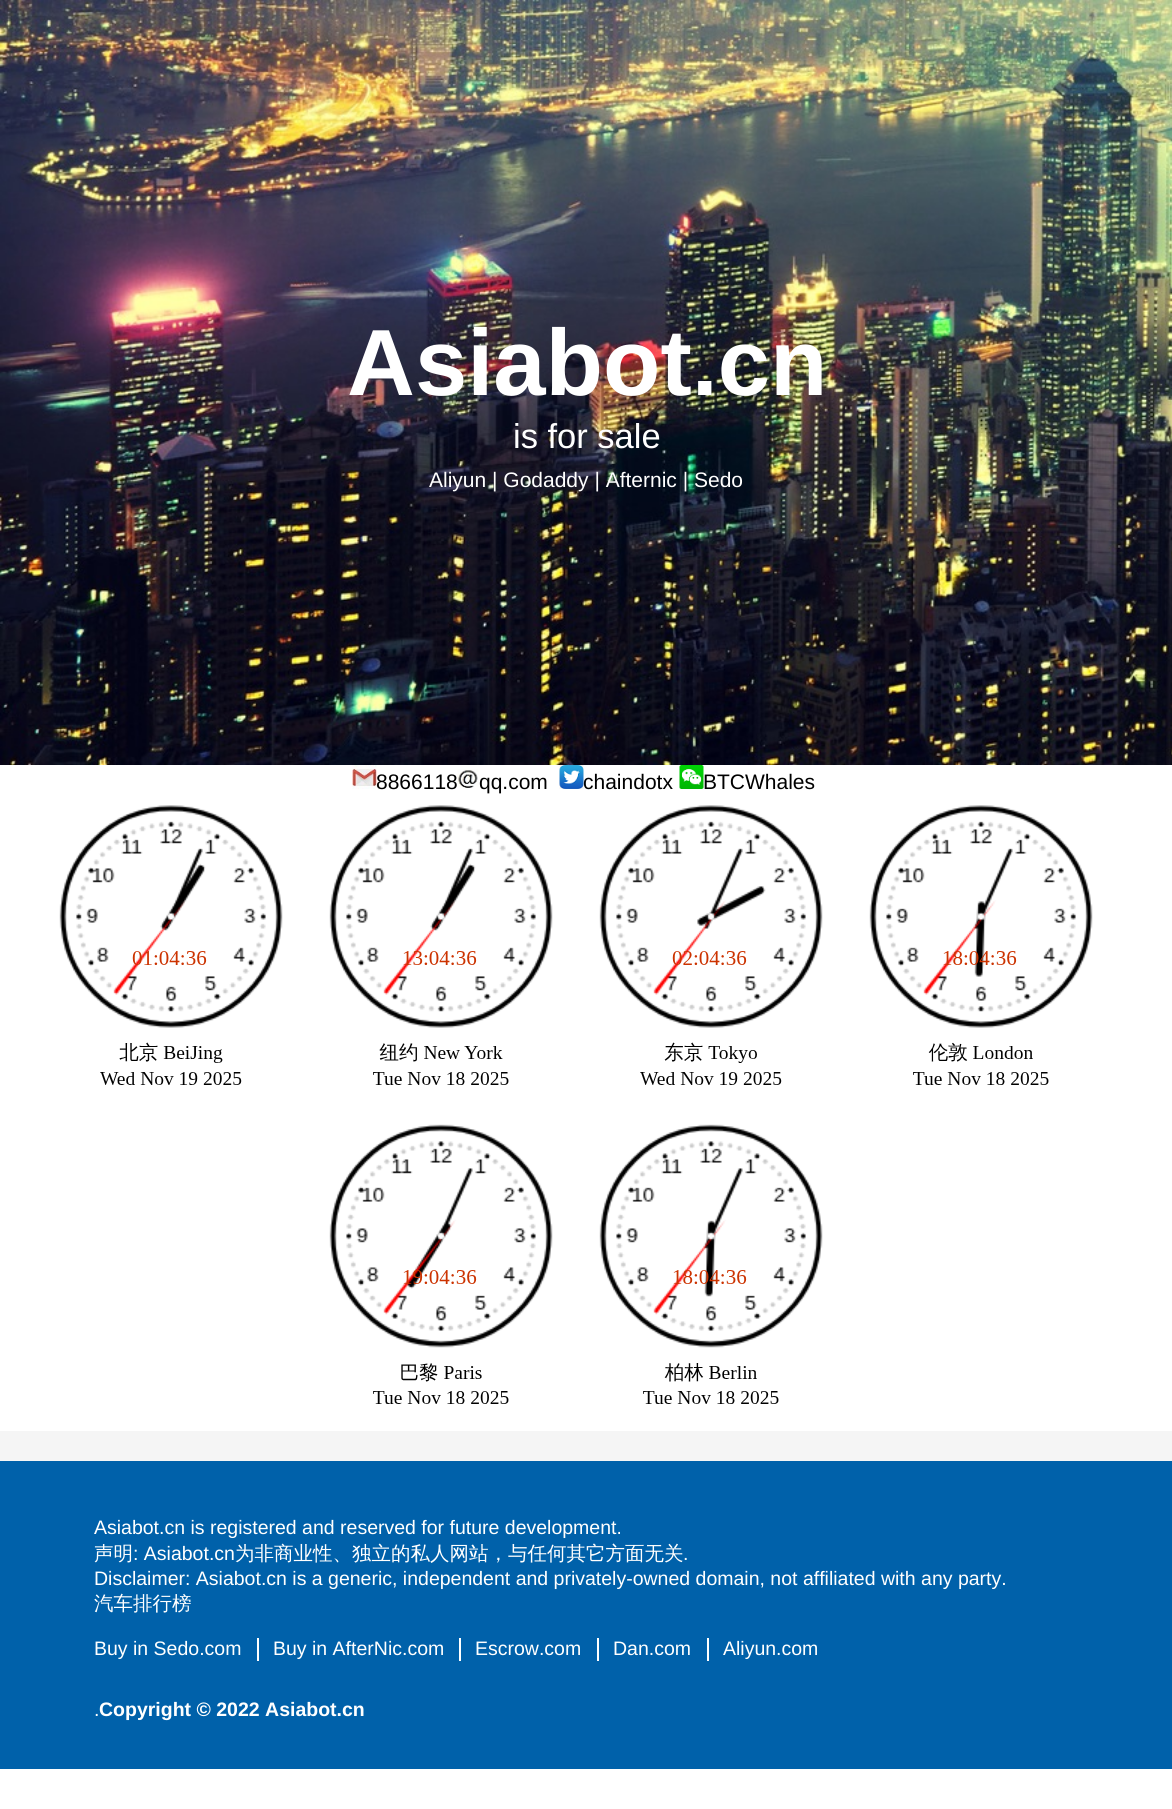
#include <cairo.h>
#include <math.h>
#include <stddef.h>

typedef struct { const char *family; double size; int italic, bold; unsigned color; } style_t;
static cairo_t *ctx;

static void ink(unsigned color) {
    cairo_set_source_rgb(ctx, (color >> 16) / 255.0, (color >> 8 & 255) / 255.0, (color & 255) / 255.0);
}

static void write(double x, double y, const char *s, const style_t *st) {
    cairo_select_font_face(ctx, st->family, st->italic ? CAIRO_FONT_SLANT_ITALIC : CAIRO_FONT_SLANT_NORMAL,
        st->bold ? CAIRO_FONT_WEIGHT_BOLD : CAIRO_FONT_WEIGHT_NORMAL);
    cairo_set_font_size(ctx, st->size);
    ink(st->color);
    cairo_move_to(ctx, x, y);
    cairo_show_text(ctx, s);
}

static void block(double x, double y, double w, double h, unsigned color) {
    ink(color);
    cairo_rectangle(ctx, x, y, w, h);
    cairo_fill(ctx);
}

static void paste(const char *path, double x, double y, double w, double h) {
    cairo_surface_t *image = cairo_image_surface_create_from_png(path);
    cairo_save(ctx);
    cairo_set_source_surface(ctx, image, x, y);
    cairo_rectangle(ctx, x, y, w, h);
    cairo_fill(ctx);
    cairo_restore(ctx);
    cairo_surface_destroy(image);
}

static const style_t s1 = {"Liberation Sans", 94, 0, 1, 0xffffff};
static const style_t s2 = {"Liberation Sans", 34.5, 0, 0, 0xffffff};
static const style_t s3 = {"Liberation Sans", 21, 0, 0, 0xffffff};
static const style_t s4 = {"Liberation Sans", 21, 0, 0, 0x000000};
static const style_t s5 = {"Liberation Sans", 19.5, 0, 0, 0xffffff};
static const style_t s6 = {"WenQuanYi Zen Hei Medium", 19.5, 0, 0, 0xffffff};
static const style_t s7 = {"Liberation Sans", 19.5, 0, 1, 0xffffff};

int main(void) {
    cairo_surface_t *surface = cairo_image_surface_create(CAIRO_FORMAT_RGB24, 1172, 1809);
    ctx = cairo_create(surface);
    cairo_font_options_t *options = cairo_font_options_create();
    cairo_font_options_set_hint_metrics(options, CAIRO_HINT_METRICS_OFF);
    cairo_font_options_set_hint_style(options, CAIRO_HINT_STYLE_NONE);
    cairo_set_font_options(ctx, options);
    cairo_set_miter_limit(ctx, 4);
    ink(0xffffff);
    cairo_paint(ctx);
    paste("pic1.png", 0, 0, 1172, 765);
    write(347, 395, "Asiabot.cn", &s1);
    write(513, 448, "is for sale", &s2);
    write(429, 487, "Aliyun | Godaddy | Afternic | Sedo", &s3);
    paste("pic2.png", 352, 765, 25, 24);
    write(376, 789, "8866118", &s4);
    paste("pic3.png", 457, 769, 22, 19);
    write(479, 789, "qq.com", &s4);
    paste("pic4.png", 559, 765, 25, 24);
    write(583, 789, "chaindotx", &s4);
    paste("pic5.png", 679, 765, 25, 24);
    write(703, 789, "BTCWhales", &s4);
    paste("pic6.png", 59, 805, 224, 280);
    paste("pic7.png", 329, 805, 224, 280);
    paste("pic8.png", 599, 805, 224, 280);
    paste("pic9.png", 869, 805, 224, 280);
    paste("pic10.png", 329, 1124, 224, 280);
    paste("pic11.png", 599, 1124, 224, 280);
    block(0, 1431, 1172, 30, 0xf5f5f5);
    block(0, 1461, 1172, 308, 0x0061aa);
    write(94, 1534, "Asiabot.cn is registered and reserved for future development.", &s5);
    write(94, 1560, "声明", &s6);
    write(133, 1560, ": Asiabot.cn", &s5);
    write(235, 1560, "为非商业性、独立的私人网站，与任何其它方面无关", &s6);
    write(683, 1560, ".", &s5);
    write(94, 1585, "Disclaimer: Asiabot.cn is a generic, independent and privately-owned domain, not affiliated with any party.", &s5);
    write(94, 1610, "汽车排行榜", &s6);
    write(94, 1655, "Buy in Sedo.com", &s5);
    block(257, 1638, 2, 23, 0xffffff);
    write(273, 1655, "Buy in AfterNic.com", &s5);
    block(459, 1638, 2, 23, 0xffffff);
    write(475, 1655, "Escrow.com", &s5);
    block(597, 1638, 2, 23, 0xffffff);
    write(613, 1655, "Dan.com", &s5);
    block(707, 1638, 2, 23, 0xffffff);
    write(723, 1655, "Aliyun.com", &s5);
    write(94, 1716, ".", &s5);
    write(99, 1716, "Copyright © 2022 Asiabot.cn", &s7);
    cairo_surface_write_to_png(surface, "screenshot.png");
    cairo_font_options_destroy(options);
    cairo_destroy(ctx);
    cairo_surface_destroy(surface);
    return 0;
}
